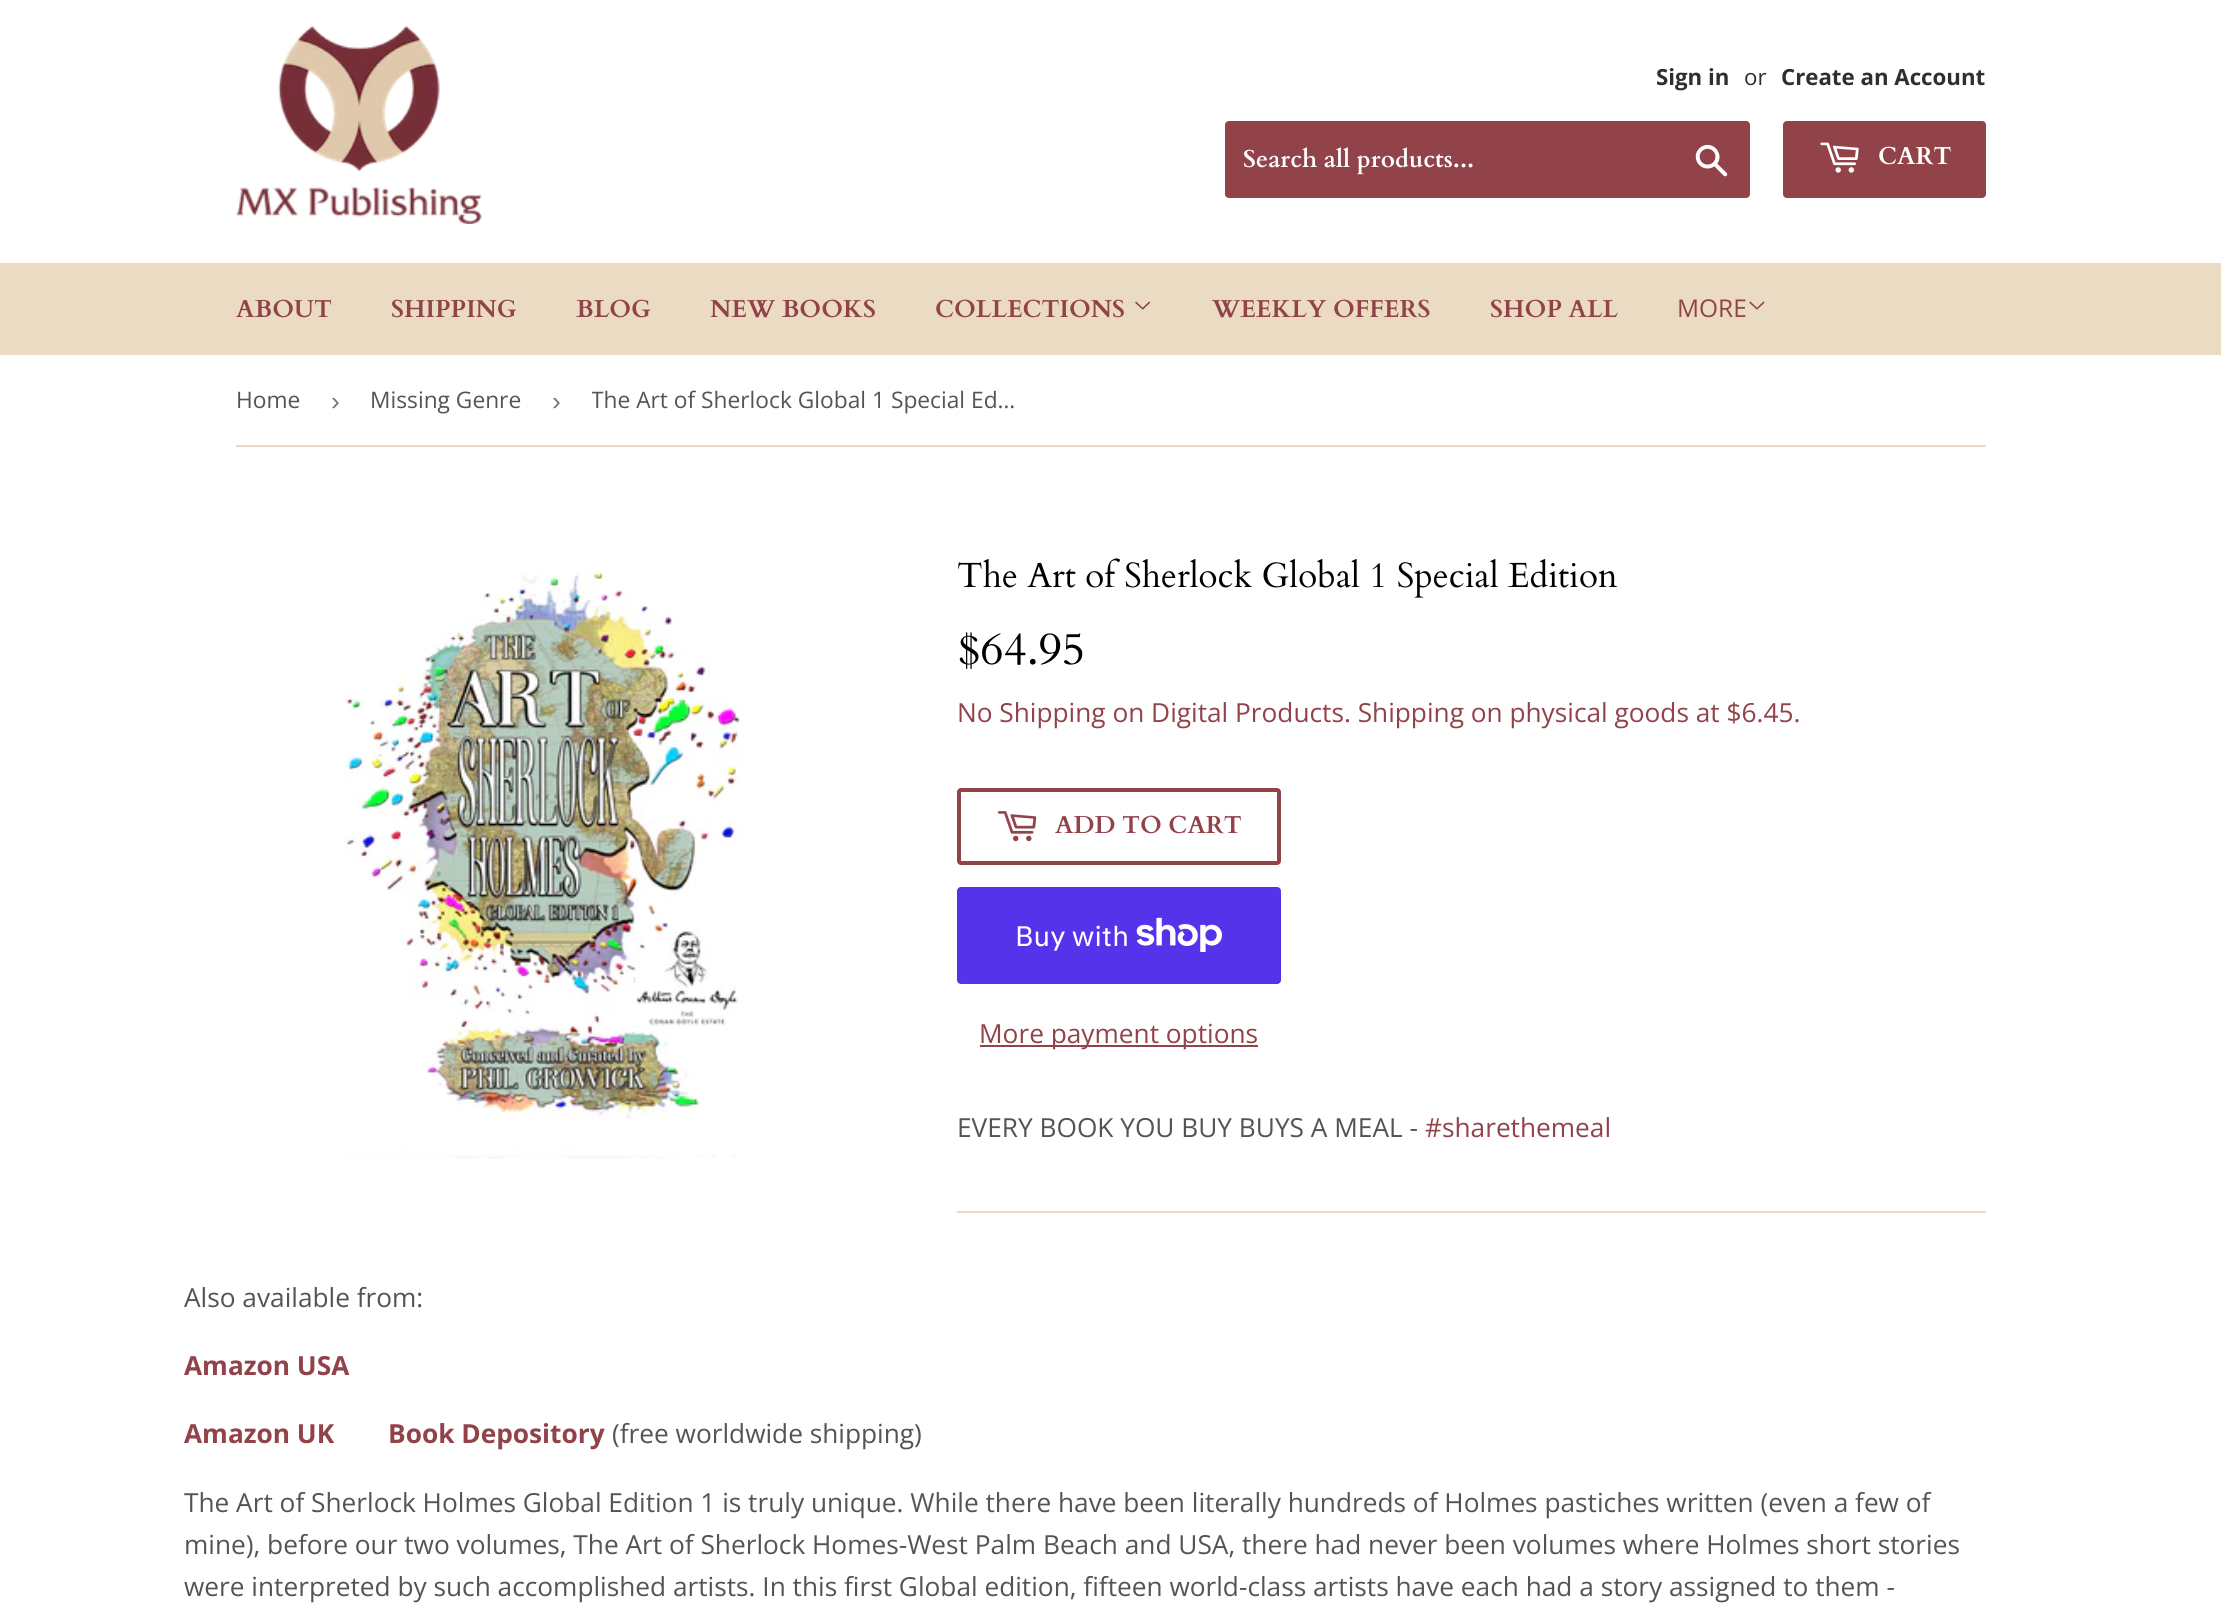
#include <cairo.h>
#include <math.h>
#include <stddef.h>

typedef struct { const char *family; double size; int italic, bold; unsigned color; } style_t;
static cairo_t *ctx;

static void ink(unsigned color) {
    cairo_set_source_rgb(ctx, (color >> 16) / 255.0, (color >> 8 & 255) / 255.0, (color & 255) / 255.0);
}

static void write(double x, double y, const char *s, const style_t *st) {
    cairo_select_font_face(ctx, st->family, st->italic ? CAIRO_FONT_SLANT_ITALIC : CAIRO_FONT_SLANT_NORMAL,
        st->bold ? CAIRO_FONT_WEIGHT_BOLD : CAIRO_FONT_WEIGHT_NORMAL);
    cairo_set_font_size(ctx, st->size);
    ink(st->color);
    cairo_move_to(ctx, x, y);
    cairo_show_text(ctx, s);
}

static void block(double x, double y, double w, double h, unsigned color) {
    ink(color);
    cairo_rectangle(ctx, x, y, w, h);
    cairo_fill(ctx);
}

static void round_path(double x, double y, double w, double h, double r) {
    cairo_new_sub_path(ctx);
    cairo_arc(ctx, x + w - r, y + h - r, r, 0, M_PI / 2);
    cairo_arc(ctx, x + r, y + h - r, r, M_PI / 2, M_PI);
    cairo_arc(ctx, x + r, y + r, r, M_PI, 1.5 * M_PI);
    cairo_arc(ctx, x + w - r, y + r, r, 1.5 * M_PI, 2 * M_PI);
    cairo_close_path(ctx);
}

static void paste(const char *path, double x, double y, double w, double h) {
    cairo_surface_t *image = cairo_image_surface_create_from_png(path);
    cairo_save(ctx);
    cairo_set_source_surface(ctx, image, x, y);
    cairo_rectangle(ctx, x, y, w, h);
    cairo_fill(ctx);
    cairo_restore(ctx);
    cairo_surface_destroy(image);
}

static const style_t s1 = {"Open Sans", 22.25, 0, 1, 0x2f2f2f};
static const style_t s2 = {"Open Sans", 22.25, 0, 0, 0x2f2f2f};
static const style_t s3 = {"Cardo", 24.5, 0, 1, 0xffffff};
static const style_t s4 = {"Cardo", 24.5, 0, 1, 0x914349};
static const style_t s5 = {"Open Sans", 24.5, 0, 0, 0x914349};
static const style_t s6 = {"Open Sans", 22.75, 0, 0, 0x545454};
static const style_t s7 = {"Liberation Sans", 26.25, 0, 0, 0x767676};
static const style_t s8 = {"Cardo", 35, 0, 0, 0x000000};
static const style_t s9 = {"Cardo", 45.5, 0, 0, 0x000000};
static const style_t s10 = {"Open Sans", 26.25, 0, 0, 0x914349};
static const style_t s11 = {"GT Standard", 28, 0, 0, 0xffffff};
static const style_t s12 = {"Open Sans", 26.25, 0, 0, 0x545454};
static const style_t s13 = {"Open Sans", 26.25, 0, 1, 0x914349};

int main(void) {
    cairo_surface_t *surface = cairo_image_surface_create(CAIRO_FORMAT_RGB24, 2221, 1614);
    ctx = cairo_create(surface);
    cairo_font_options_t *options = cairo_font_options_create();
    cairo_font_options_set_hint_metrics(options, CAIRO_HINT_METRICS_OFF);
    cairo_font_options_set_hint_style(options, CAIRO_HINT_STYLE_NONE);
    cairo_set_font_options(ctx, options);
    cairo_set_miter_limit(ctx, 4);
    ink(0xffffff);
    cairo_paint(ctx);
    paste("pic1.png", 236, 26, 246, 198);
    write(1656, 85, "Sign in", &s1);
    write(1744, 85, "or", &s2);
    write(1781, 85, "Create an Account", &s1);
    ink(0x914349);
    round_path(1225, 121, 525, 77, 4);
    cairo_fill(ctx);
    write(1243, 167, "Search all products...", &s3);
    paste("pic2.png", 1695, 144, 33, 33);
    ink(0x914349);
    round_path(1783, 121, 203, 77, 4);
    cairo_fill(ctx);
    paste("pic3.png", 1820, 142, 39, 31);
    write(1878, 164, "CART", &s3);
    block(0, 263, 2221, 92, 0xebdbc3);
    write(236, 317, "ABOUT", &s4);
    write(391, 317, "SHIPPING", &s4);
    write(576, 317, "BLOG", &s4);
    write(710, 317, "NEW BOOKS", &s4);
    write(935, 317, "COLLECTIONS", &s4);
    paste("pic4.png", 1135, 301, 16, 9);
    write(1212, 317, "WEEKLY OFFERS", &s4);
    write(1490, 317, "SHOP ALL", &s4);
    write(1677, 317, "MORE", &s5);
    paste("pic5.png", 1749, 301, 16, 9);
    block(236, 445, 1750, 2, 0xebdbc3);
    write(236, 408, "Home", &s6);
    write(331, 410, "›", &s7);
    write(370, 408, "Missing Genre", &s6);
    write(552, 410, "›", &s7);
    cairo_save(ctx);
    cairo_rectangle(ctx, 592, 355, 437, 90);
    cairo_clip(ctx);
    write(591, 408, "The Art of Sherlock Global 1 Special Ed…", &s6);
    cairo_restore(ctx);
    paste("pic6.png", 345, 570, 397, 589);
    write(957, 587, "The Art of Sherlock Global 1 Special Edition", &s8);
    write(957, 664, "$64.95", &s9);
    write(957, 722, "No Shipping on Digital Products. Shipping on physical goods at $6.45.", &s10);
    round_path(959, 790, 320, 73, 2);
    cairo_set_line_width(ctx, 4);
    cairo_stroke(ctx);
    paste("pic7.png", 997, 811, 40, 31);
    write(1055, 833, "ADD TO CART", &s4);
    ink(0x5433eb);
    round_path(957, 887, 324, 97, 4);
    cairo_fill(ctx);
    write(1015, 946, "Buy with", &s11);
    paste("pic8.png", 1136, 917, 86, 35);
    block(980, 1045, 278, 2, 0x914349);
    write(979, 1043, "More payment options", &s10);
    write(957, 1137, "EVERY BOOK YOU BUY BUYS A MEAL -", &s12);
    write(1425, 1137, "#sharethemeal", &s10);
    block(957, 1211, 1029, 2, 0xebdbc3);
    write(184, 1307, "Also available from:", &s12);
    write(184, 1375, "Amazon USA", &s13);
    write(184, 1443, "Amazon UK", &s13);
    write(388, 1443, "Book Depository", &s13);
    write(612, 1443, "(free worldwide shipping)", &s12);
    write(184, 1512, "The Art of Sherlock Holmes Global Edition 1 is truly unique. While there have been literally hundreds of Holmes pastiches written (even a few of", &s12);
    write(184, 1554, "mine), before our two volumes, The Art of Sherlock Homes-West Palm Beach and USA, there had never been volumes where Holmes short stories", &s12);
    write(184, 1596, "were interpreted by such accomplished artists. In this first Global edition, fifteen world-class artists have each had a story assigned to them -", &s12);
    cairo_surface_write_to_png(surface, "screenshot.png");
    cairo_font_options_destroy(options);
    cairo_destroy(ctx);
    cairo_surface_destroy(surface);
    return 0;
}
